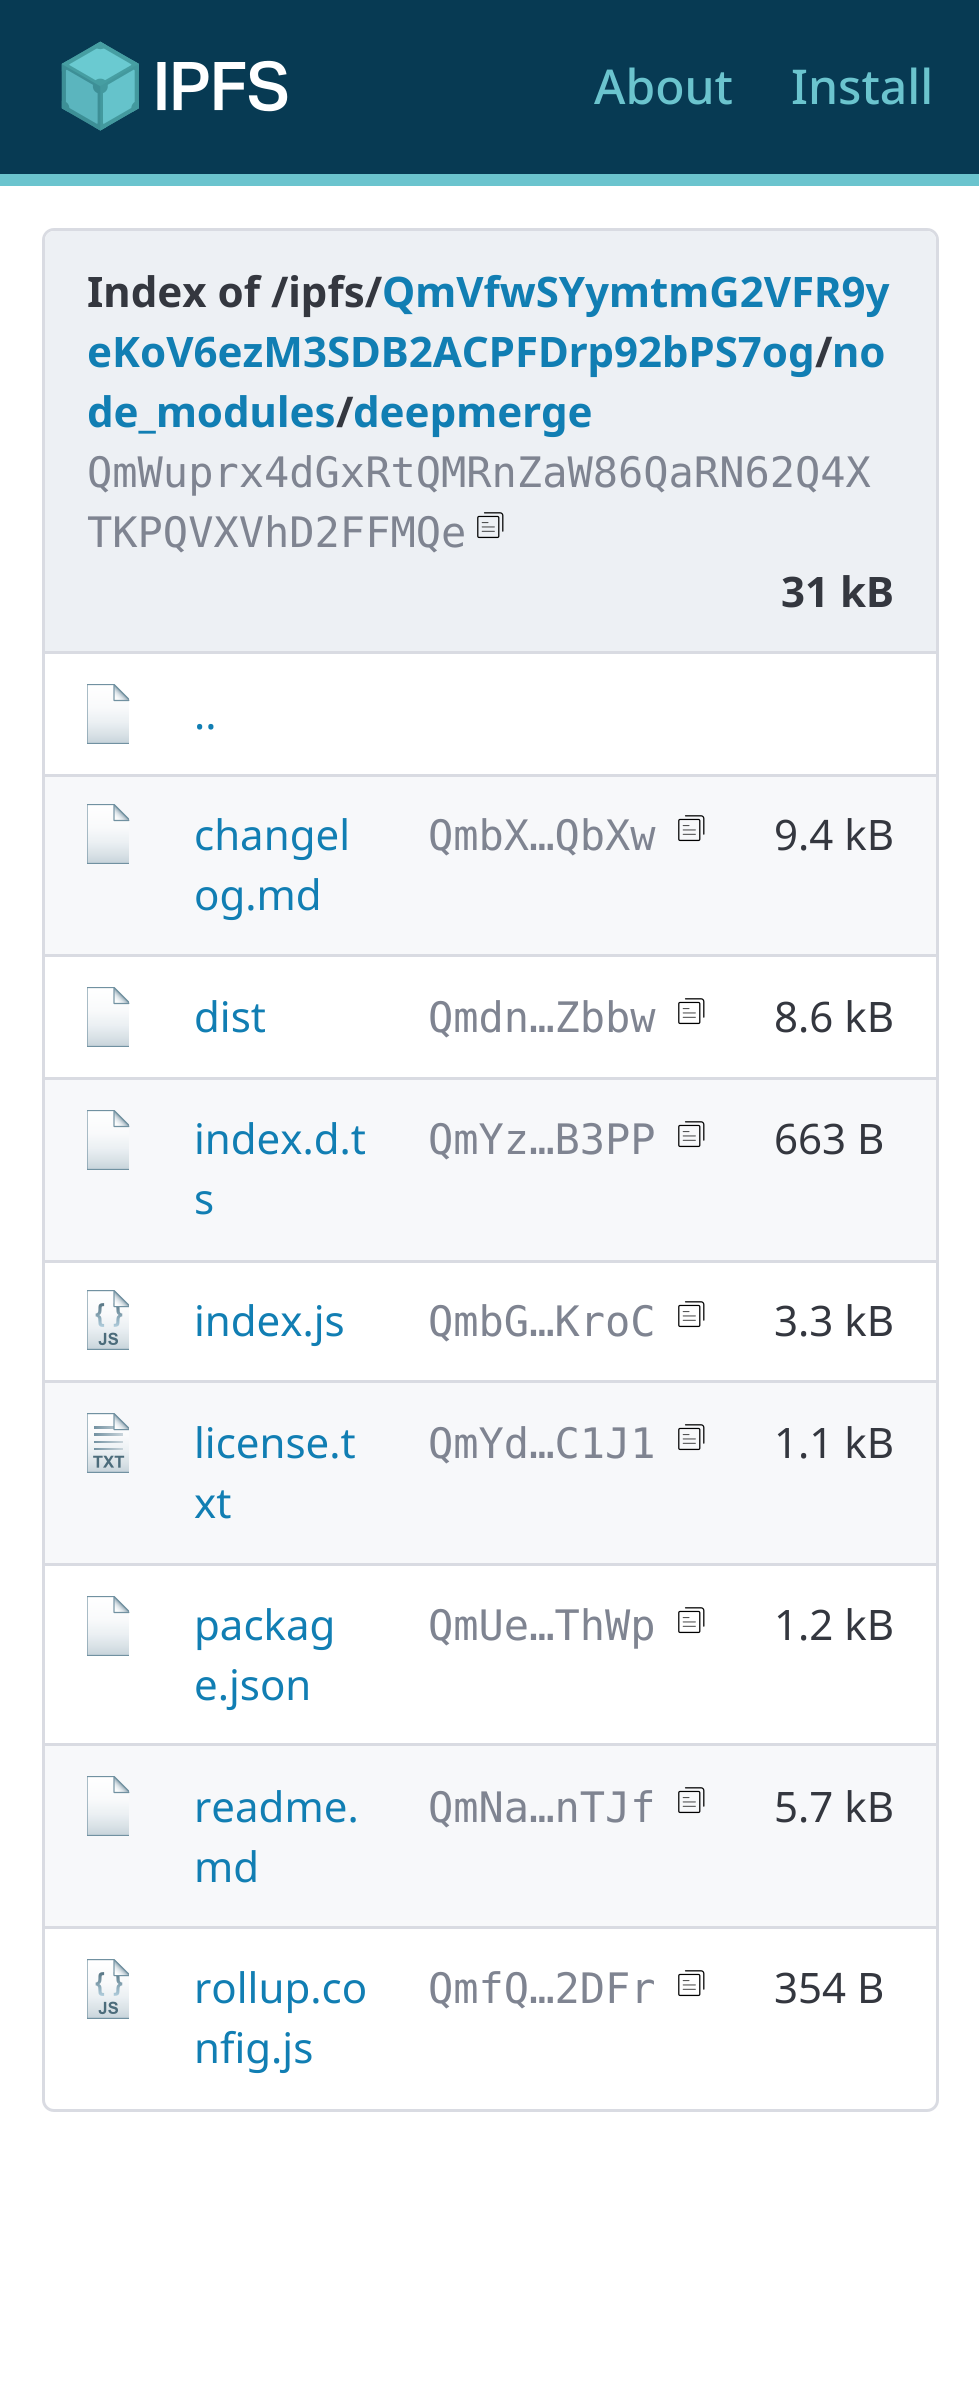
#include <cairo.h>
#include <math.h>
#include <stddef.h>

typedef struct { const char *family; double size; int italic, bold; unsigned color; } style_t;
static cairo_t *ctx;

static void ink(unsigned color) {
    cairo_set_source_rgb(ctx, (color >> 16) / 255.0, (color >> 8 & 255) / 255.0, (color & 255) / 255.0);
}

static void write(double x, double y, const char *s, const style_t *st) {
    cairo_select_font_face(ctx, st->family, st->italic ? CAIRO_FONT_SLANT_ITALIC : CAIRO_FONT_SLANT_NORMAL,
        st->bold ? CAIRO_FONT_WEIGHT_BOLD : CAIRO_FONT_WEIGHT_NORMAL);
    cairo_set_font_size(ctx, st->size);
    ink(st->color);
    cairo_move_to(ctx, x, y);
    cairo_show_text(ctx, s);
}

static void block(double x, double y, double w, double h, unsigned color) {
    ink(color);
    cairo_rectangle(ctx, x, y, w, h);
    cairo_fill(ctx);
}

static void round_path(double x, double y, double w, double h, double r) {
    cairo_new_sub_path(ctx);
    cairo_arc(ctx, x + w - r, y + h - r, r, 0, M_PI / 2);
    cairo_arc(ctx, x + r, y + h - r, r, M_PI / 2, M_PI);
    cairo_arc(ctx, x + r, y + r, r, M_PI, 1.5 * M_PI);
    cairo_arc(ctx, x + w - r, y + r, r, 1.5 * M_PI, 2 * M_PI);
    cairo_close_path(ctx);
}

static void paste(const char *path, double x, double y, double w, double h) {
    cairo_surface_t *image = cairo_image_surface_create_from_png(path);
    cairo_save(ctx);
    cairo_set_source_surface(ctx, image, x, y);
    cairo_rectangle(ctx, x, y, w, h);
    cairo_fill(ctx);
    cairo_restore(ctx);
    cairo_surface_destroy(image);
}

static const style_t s1 = {"Noto Sans Medium", 48, 0, 0, 0x6bc4ce};
static const style_t s2 = {"Noto Sans", 42, 0, 1, 0x34373f};
static const style_t s3 = {"Noto Sans", 42, 0, 1, 0x117eb3};
static const style_t s4 = {"DejaVu Sans Mono", 42, 0, 0, 0x7f8491};
static const style_t s5 = {"Noto Sans", 42, 0, 0, 0x117eb3};
static const style_t s6 = {"Noto Sans", 42, 0, 0, 0x34373f};

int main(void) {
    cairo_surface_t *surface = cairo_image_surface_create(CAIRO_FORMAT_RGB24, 979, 2390);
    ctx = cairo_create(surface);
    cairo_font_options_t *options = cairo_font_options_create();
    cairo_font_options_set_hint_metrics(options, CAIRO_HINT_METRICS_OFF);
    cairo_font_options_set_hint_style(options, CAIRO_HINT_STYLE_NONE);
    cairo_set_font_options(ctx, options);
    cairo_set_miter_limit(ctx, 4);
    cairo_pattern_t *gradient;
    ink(0xffffff);
    cairo_paint(ctx);
    block(0, 0, 979, 174, 0x073a53);
    block(0, 174, 979, 12, 0x6bc4ce);
    paste("pic1.png", 61, 41, 227, 90);
    write(594, 104, "About", &s1);
    write(791, 104, "Install", &s1);
    round_path(43.5, 229.5, 894, 1881, 10.5);
    ink(0xd9dbe2);
    cairo_set_line_width(ctx, 3);
    cairo_stroke(ctx);
    ink(0xedf0f4);
    cairo_new_path(ctx);
    cairo_move_to(ctx, 54, 231);
    cairo_line_to(ctx, 927, 231);
    cairo_curve_to(ctx, 932, 231, 936, 235, 936, 240);
    cairo_line_to(ctx, 936, 654);
    cairo_line_to(ctx, 45, 654);
    cairo_line_to(ctx, 45, 240);
    cairo_curve_to(ctx, 45, 235, 49, 231, 54, 231);
    cairo_close_path(ctx);
    cairo_fill(ctx);
    block(45, 651, 891, 3, 0xd9dbe2);
    write(87, 307, "Index of /ipfs/", &s2);
    write(382, 307, "QmVfwSYymtmG2VFR9y", &s3);
    write(87, 367, "eKoV6ezM3SDB2ACPFDrp92bPS7og", &s3);
    write(815, 367, "/", &s2);
    write(832, 367, "no", &s3);
    write(87, 427, "de_modules", &s3);
    write(336, 427, "/", &s2);
    write(353, 427, "deepmerge", &s3);
    write(87, 487, "QmWuprx4dGxRtQMRnZaW86QaRN62Q4X", &s4);
    write(87, 547, "TKPQVXVhD2FFMQe", &s4);
    paste("pic2.png", 477, 512, 27, 27);
    write(781, 607, "31 kB", &s2);
    block(45, 774, 891, 3, 0xd9dbe2);
    cairo_save(ctx);
    cairo_rectangle(ctx, 87, 684, 42, 60);
    cairo_clip(ctx);
    gradient = cairo_pattern_create_linear(109, 743, 109, 685);
    cairo_pattern_add_color_stop_rgba(gradient, 0, 0.784, 0.831, 0.859, 1);
    cairo_pattern_add_color_stop_rgba(gradient, 0.14, 0.847, 0.882, 0.902, 1);
    cairo_pattern_add_color_stop_rgba(gradient, 0.36, 0.922, 0.941, 0.953, 1);
    cairo_pattern_add_color_stop_rgba(gradient, 0.62, 0.976, 0.98, 0.984, 1);
    cairo_pattern_add_color_stop_rgba(gradient, 1, 1, 1, 1, 1);
    cairo_set_source(ctx, gradient);
    cairo_pattern_destroy(gradient);
    cairo_new_path(ctx);
    cairo_move_to(ctx, 114, 685);
    cairo_line_to(ctx, 130, 701);
    cairo_line_to(ctx, 130, 743);
    cairo_line_to(ctx, 87, 743);
    cairo_line_to(ctx, 87, 685);
    cairo_close_path(ctx);
    cairo_fill(ctx);
    cairo_new_path(ctx);
    cairo_move_to(ctx, 114, 684.5);
    cairo_line_to(ctx, 130, 700.5);
    cairo_line_to(ctx, 130, 743.5);
    cairo_line_to(ctx, 87, 743.5);
    cairo_line_to(ctx, 87, 684.5);
    cairo_close_path(ctx);
    ink(0x7191a1);
    cairo_set_line_width(ctx, 1.2);
    cairo_stroke(ctx);
    cairo_restore(ctx);
    gradient = cairo_pattern_create_linear(114, 701, 122, 693);
    cairo_pattern_add_color_stop_rgba(gradient, 0, 1, 1, 1, 1);
    cairo_pattern_add_color_stop_rgba(gradient, 0.35, 0.98, 0.984, 0.984, 1);
    cairo_pattern_add_color_stop_rgba(gradient, 0.53, 0.929, 0.945, 0.957, 1);
    cairo_pattern_add_color_stop_rgba(gradient, 0.68, 0.867, 0.898, 0.914, 1);
    cairo_pattern_add_color_stop_rgba(gradient, 0.8, 0.78, 0.827, 0.855, 1);
    cairo_pattern_add_color_stop_rgba(gradient, 0.91, 0.678, 0.741, 0.78, 1);
    cairo_pattern_add_color_stop_rgba(gradient, 1, 0.573, 0.647, 0.69, 1);
    cairo_set_source(ctx, gradient);
    cairo_pattern_destroy(gradient);
    cairo_new_path(ctx);
    cairo_move_to(ctx, 114, 684.5);
    cairo_line_to(ctx, 130, 700.5);
    cairo_line_to(ctx, 114, 700.5);
    cairo_close_path(ctx);
    cairo_fill(ctx);
    cairo_save(ctx);
    cairo_rectangle(ctx, 87, 684, 42, 60);
    cairo_clip(ctx);
    cairo_new_path(ctx);
    cairo_move_to(ctx, 114, 684.5);
    cairo_line_to(ctx, 130, 700.5);
    cairo_line_to(ctx, 114, 700.5);
    cairo_close_path(ctx);
    ink(0x7191a1);
    cairo_set_line_width(ctx, 1.2);
    cairo_set_line_join(ctx, CAIRO_LINE_JOIN_BEVEL);
    cairo_stroke(ctx);
    cairo_restore(ctx);
    write(194, 729, "..", &s5);
    block(45, 777, 891, 177, 0xf7f8fa);
    block(45, 954, 891, 3, 0xd9dbe2);
    cairo_save(ctx);
    cairo_rectangle(ctx, 87, 804, 42, 60);
    cairo_clip(ctx);
    gradient = cairo_pattern_create_linear(109, 863, 109, 805);
    cairo_pattern_add_color_stop_rgba(gradient, 0, 0.784, 0.831, 0.859, 1);
    cairo_pattern_add_color_stop_rgba(gradient, 0.14, 0.847, 0.882, 0.902, 1);
    cairo_pattern_add_color_stop_rgba(gradient, 0.36, 0.922, 0.941, 0.953, 1);
    cairo_pattern_add_color_stop_rgba(gradient, 0.62, 0.976, 0.98, 0.984, 1);
    cairo_pattern_add_color_stop_rgba(gradient, 1, 1, 1, 1, 1);
    cairo_set_source(ctx, gradient);
    cairo_pattern_destroy(gradient);
    cairo_new_path(ctx);
    cairo_move_to(ctx, 114, 805);
    cairo_line_to(ctx, 130, 821);
    cairo_line_to(ctx, 130, 863);
    cairo_line_to(ctx, 87, 863);
    cairo_line_to(ctx, 87, 805);
    cairo_close_path(ctx);
    cairo_fill(ctx);
    cairo_new_path(ctx);
    cairo_move_to(ctx, 114, 804.5);
    cairo_line_to(ctx, 130, 820.5);
    cairo_line_to(ctx, 130, 863.5);
    cairo_line_to(ctx, 87, 863.5);
    cairo_line_to(ctx, 87, 804.5);
    cairo_close_path(ctx);
    ink(0x7191a1);
    cairo_set_line_width(ctx, 1.2);
    cairo_stroke(ctx);
    cairo_restore(ctx);
    gradient = cairo_pattern_create_linear(114, 821, 122, 813);
    cairo_pattern_add_color_stop_rgba(gradient, 0, 1, 1, 1, 1);
    cairo_pattern_add_color_stop_rgba(gradient, 0.35, 0.98, 0.984, 0.984, 1);
    cairo_pattern_add_color_stop_rgba(gradient, 0.53, 0.929, 0.945, 0.957, 1);
    cairo_pattern_add_color_stop_rgba(gradient, 0.68, 0.867, 0.898, 0.914, 1);
    cairo_pattern_add_color_stop_rgba(gradient, 0.8, 0.78, 0.827, 0.855, 1);
    cairo_pattern_add_color_stop_rgba(gradient, 0.91, 0.678, 0.741, 0.78, 1);
    cairo_pattern_add_color_stop_rgba(gradient, 1, 0.573, 0.647, 0.69, 1);
    cairo_set_source(ctx, gradient);
    cairo_pattern_destroy(gradient);
    cairo_new_path(ctx);
    cairo_move_to(ctx, 114, 804.5);
    cairo_line_to(ctx, 130, 820.5);
    cairo_line_to(ctx, 114, 820.5);
    cairo_close_path(ctx);
    cairo_fill(ctx);
    cairo_save(ctx);
    cairo_rectangle(ctx, 87, 804, 42, 60);
    cairo_clip(ctx);
    cairo_new_path(ctx);
    cairo_move_to(ctx, 114, 804.5);
    cairo_line_to(ctx, 130, 820.5);
    cairo_line_to(ctx, 114, 820.5);
    cairo_close_path(ctx);
    ink(0x7191a1);
    cairo_set_line_width(ctx, 1.2);
    cairo_set_line_join(ctx, CAIRO_LINE_JOIN_BEVEL);
    cairo_stroke(ctx);
    cairo_restore(ctx);
    write(194, 850, "changel", &s5);
    write(194, 910, "og.md", &s5);
    write(428, 850, "QmbX…QbXw", &s4);
    paste("pic3.png", 678, 815, 27, 27);
    write(774, 850, "9.4 kB", &s6);
    block(45, 1077, 891, 3, 0xd9dbe2);
    cairo_save(ctx);
    cairo_rectangle(ctx, 87, 987, 42, 60);
    cairo_clip(ctx);
    gradient = cairo_pattern_create_linear(109, 1046, 109, 988);
    cairo_pattern_add_color_stop_rgba(gradient, 0, 0.784, 0.831, 0.859, 1);
    cairo_pattern_add_color_stop_rgba(gradient, 0.14, 0.847, 0.882, 0.902, 1);
    cairo_pattern_add_color_stop_rgba(gradient, 0.36, 0.922, 0.941, 0.953, 1);
    cairo_pattern_add_color_stop_rgba(gradient, 0.62, 0.976, 0.98, 0.984, 1);
    cairo_pattern_add_color_stop_rgba(gradient, 1, 1, 1, 1, 1);
    cairo_set_source(ctx, gradient);
    cairo_pattern_destroy(gradient);
    cairo_new_path(ctx);
    cairo_move_to(ctx, 114, 988);
    cairo_line_to(ctx, 130, 1004);
    cairo_line_to(ctx, 130, 1046);
    cairo_line_to(ctx, 87, 1046);
    cairo_line_to(ctx, 87, 988);
    cairo_close_path(ctx);
    cairo_fill(ctx);
    cairo_new_path(ctx);
    cairo_move_to(ctx, 114, 987.5);
    cairo_line_to(ctx, 130, 1003.5);
    cairo_line_to(ctx, 130, 1046.5);
    cairo_line_to(ctx, 87, 1046.5);
    cairo_line_to(ctx, 87, 987.5);
    cairo_close_path(ctx);
    ink(0x7191a1);
    cairo_set_line_width(ctx, 1.2);
    cairo_stroke(ctx);
    cairo_restore(ctx);
    gradient = cairo_pattern_create_linear(114, 1004, 122, 996);
    cairo_pattern_add_color_stop_rgba(gradient, 0, 1, 1, 1, 1);
    cairo_pattern_add_color_stop_rgba(gradient, 0.35, 0.98, 0.984, 0.984, 1);
    cairo_pattern_add_color_stop_rgba(gradient, 0.53, 0.929, 0.945, 0.957, 1);
    cairo_pattern_add_color_stop_rgba(gradient, 0.68, 0.867, 0.898, 0.914, 1);
    cairo_pattern_add_color_stop_rgba(gradient, 0.8, 0.78, 0.827, 0.855, 1);
    cairo_pattern_add_color_stop_rgba(gradient, 0.91, 0.678, 0.741, 0.78, 1);
    cairo_pattern_add_color_stop_rgba(gradient, 1, 0.573, 0.647, 0.69, 1);
    cairo_set_source(ctx, gradient);
    cairo_pattern_destroy(gradient);
    cairo_new_path(ctx);
    cairo_move_to(ctx, 114, 987.5);
    cairo_line_to(ctx, 130, 1003.5);
    cairo_line_to(ctx, 114, 1003.5);
    cairo_close_path(ctx);
    cairo_fill(ctx);
    cairo_save(ctx);
    cairo_rectangle(ctx, 87, 987, 42, 60);
    cairo_clip(ctx);
    cairo_new_path(ctx);
    cairo_move_to(ctx, 114, 987.5);
    cairo_line_to(ctx, 130, 1003.5);
    cairo_line_to(ctx, 114, 1003.5);
    cairo_close_path(ctx);
    ink(0x7191a1);
    cairo_set_line_width(ctx, 1.2);
    cairo_set_line_join(ctx, CAIRO_LINE_JOIN_BEVEL);
    cairo_stroke(ctx);
    cairo_restore(ctx);
    write(194, 1032, "dist", &s5);
    write(428, 1032, "Qmdn…Zbbw", &s4);
    paste("pic4.png", 678, 998, 27, 27);
    write(774, 1032, "8.6 kB", &s6);
    block(45, 1080, 891, 180, 0xf7f8fa);
    block(45, 1260, 891, 3, 0xd9dbe2);
    cairo_save(ctx);
    cairo_rectangle(ctx, 87, 1110, 42, 60);
    cairo_clip(ctx);
    gradient = cairo_pattern_create_linear(109, 1169, 109, 1111);
    cairo_pattern_add_color_stop_rgba(gradient, 0, 0.784, 0.831, 0.859, 1);
    cairo_pattern_add_color_stop_rgba(gradient, 0.14, 0.847, 0.882, 0.902, 1);
    cairo_pattern_add_color_stop_rgba(gradient, 0.36, 0.922, 0.941, 0.953, 1);
    cairo_pattern_add_color_stop_rgba(gradient, 0.62, 0.976, 0.98, 0.984, 1);
    cairo_pattern_add_color_stop_rgba(gradient, 1, 1, 1, 1, 1);
    cairo_set_source(ctx, gradient);
    cairo_pattern_destroy(gradient);
    cairo_new_path(ctx);
    cairo_move_to(ctx, 114, 1111);
    cairo_line_to(ctx, 130, 1127);
    cairo_line_to(ctx, 130, 1169);
    cairo_line_to(ctx, 87, 1169);
    cairo_line_to(ctx, 87, 1111);
    cairo_close_path(ctx);
    cairo_fill(ctx);
    cairo_new_path(ctx);
    cairo_move_to(ctx, 114, 1110.5);
    cairo_line_to(ctx, 130, 1126.5);
    cairo_line_to(ctx, 130, 1169.5);
    cairo_line_to(ctx, 87, 1169.5);
    cairo_line_to(ctx, 87, 1110.5);
    cairo_close_path(ctx);
    ink(0x7191a1);
    cairo_set_line_width(ctx, 1.2);
    cairo_stroke(ctx);
    cairo_restore(ctx);
    gradient = cairo_pattern_create_linear(114, 1127, 122, 1119);
    cairo_pattern_add_color_stop_rgba(gradient, 0, 1, 1, 1, 1);
    cairo_pattern_add_color_stop_rgba(gradient, 0.35, 0.98, 0.984, 0.984, 1);
    cairo_pattern_add_color_stop_rgba(gradient, 0.53, 0.929, 0.945, 0.957, 1);
    cairo_pattern_add_color_stop_rgba(gradient, 0.68, 0.867, 0.898, 0.914, 1);
    cairo_pattern_add_color_stop_rgba(gradient, 0.8, 0.78, 0.827, 0.855, 1);
    cairo_pattern_add_color_stop_rgba(gradient, 0.91, 0.678, 0.741, 0.78, 1);
    cairo_pattern_add_color_stop_rgba(gradient, 1, 0.573, 0.647, 0.69, 1);
    cairo_set_source(ctx, gradient);
    cairo_pattern_destroy(gradient);
    cairo_new_path(ctx);
    cairo_move_to(ctx, 114, 1110.5);
    cairo_line_to(ctx, 130, 1126.5);
    cairo_line_to(ctx, 114, 1126.5);
    cairo_close_path(ctx);
    cairo_fill(ctx);
    cairo_save(ctx);
    cairo_rectangle(ctx, 87, 1110, 42, 60);
    cairo_clip(ctx);
    cairo_new_path(ctx);
    cairo_move_to(ctx, 114, 1110.5);
    cairo_line_to(ctx, 130, 1126.5);
    cairo_line_to(ctx, 114, 1126.5);
    cairo_close_path(ctx);
    ink(0x7191a1);
    cairo_set_line_width(ctx, 1.2);
    cairo_set_line_join(ctx, CAIRO_LINE_JOIN_BEVEL);
    cairo_stroke(ctx);
    cairo_restore(ctx);
    write(194, 1154, "index.d.t", &s5);
    write(194, 1214, "s", &s5);
    write(428, 1154, "QmYz…B3PP", &s4);
    paste("pic3.png", 678, 1121, 27, 27);
    write(774, 1154, "663 B", &s6);
    block(45, 1380, 891, 3, 0xd9dbe2);
    paste("pic5.png", 87, 1290, 42, 60);
    write(194, 1336, "index.js", &s5);
    write(428, 1336, "QmbG…KroC", &s4);
    paste("pic4.png", 678, 1301, 27, 27);
    write(774, 1336, "3.3 kB", &s6);
    block(45, 1383, 891, 180, 0xf7f8fa);
    block(45, 1563, 891, 3, 0xd9dbe2);
    paste("pic6.png", 87, 1413, 42, 60);
    write(194, 1458, "license.t", &s5);
    write(194, 1518, "xt", &s5);
    write(428, 1458, "QmYd…C1J1", &s4);
    paste("pic3.png", 678, 1424, 27, 27);
    write(774, 1458, "1.1 kB", &s6);
    block(45, 1743, 891, 3, 0xd9dbe2);
    cairo_save(ctx);
    cairo_rectangle(ctx, 87, 1596, 42, 60);
    cairo_clip(ctx);
    gradient = cairo_pattern_create_linear(109, 1655, 109, 1597);
    cairo_pattern_add_color_stop_rgba(gradient, 0, 0.784, 0.831, 0.859, 1);
    cairo_pattern_add_color_stop_rgba(gradient, 0.14, 0.847, 0.882, 0.902, 1);
    cairo_pattern_add_color_stop_rgba(gradient, 0.36, 0.922, 0.941, 0.953, 1);
    cairo_pattern_add_color_stop_rgba(gradient, 0.62, 0.976, 0.98, 0.984, 1);
    cairo_pattern_add_color_stop_rgba(gradient, 1, 1, 1, 1, 1);
    cairo_set_source(ctx, gradient);
    cairo_pattern_destroy(gradient);
    cairo_new_path(ctx);
    cairo_move_to(ctx, 114, 1597);
    cairo_line_to(ctx, 130, 1613);
    cairo_line_to(ctx, 130, 1655);
    cairo_line_to(ctx, 87, 1655);
    cairo_line_to(ctx, 87, 1597);
    cairo_close_path(ctx);
    cairo_fill(ctx);
    cairo_new_path(ctx);
    cairo_move_to(ctx, 114, 1596.5);
    cairo_line_to(ctx, 130, 1612.5);
    cairo_line_to(ctx, 130, 1655.5);
    cairo_line_to(ctx, 87, 1655.5);
    cairo_line_to(ctx, 87, 1596.5);
    cairo_close_path(ctx);
    ink(0x7191a1);
    cairo_set_line_width(ctx, 1.2);
    cairo_stroke(ctx);
    cairo_restore(ctx);
    gradient = cairo_pattern_create_linear(114, 1613, 122, 1605);
    cairo_pattern_add_color_stop_rgba(gradient, 0, 1, 1, 1, 1);
    cairo_pattern_add_color_stop_rgba(gradient, 0.35, 0.98, 0.984, 0.984, 1);
    cairo_pattern_add_color_stop_rgba(gradient, 0.53, 0.929, 0.945, 0.957, 1);
    cairo_pattern_add_color_stop_rgba(gradient, 0.68, 0.867, 0.898, 0.914, 1);
    cairo_pattern_add_color_stop_rgba(gradient, 0.8, 0.78, 0.827, 0.855, 1);
    cairo_pattern_add_color_stop_rgba(gradient, 0.91, 0.678, 0.741, 0.78, 1);
    cairo_pattern_add_color_stop_rgba(gradient, 1, 0.573, 0.647, 0.69, 1);
    cairo_set_source(ctx, gradient);
    cairo_pattern_destroy(gradient);
    cairo_new_path(ctx);
    cairo_move_to(ctx, 114, 1596.5);
    cairo_line_to(ctx, 130, 1612.5);
    cairo_line_to(ctx, 114, 1612.5);
    cairo_close_path(ctx);
    cairo_fill(ctx);
    cairo_save(ctx);
    cairo_rectangle(ctx, 87, 1596, 42, 60);
    cairo_clip(ctx);
    cairo_new_path(ctx);
    cairo_move_to(ctx, 114, 1596.5);
    cairo_line_to(ctx, 130, 1612.5);
    cairo_line_to(ctx, 114, 1612.5);
    cairo_close_path(ctx);
    ink(0x7191a1);
    cairo_set_line_width(ctx, 1.2);
    cairo_set_line_join(ctx, CAIRO_LINE_JOIN_BEVEL);
    cairo_stroke(ctx);
    cairo_restore(ctx);
    write(194, 1640, "packag", &s5);
    write(194, 1700, "e.json", &s5);
    write(428, 1640, "QmUe…ThWp", &s4);
    paste("pic4.png", 678, 1607, 27, 27);
    write(774, 1640, "1.2 kB", &s6);
    block(45, 1746, 891, 180, 0xf7f8fa);
    block(45, 1926, 891, 3, 0xd9dbe2);
    cairo_save(ctx);
    cairo_rectangle(ctx, 87, 1776, 42, 60);
    cairo_clip(ctx);
    gradient = cairo_pattern_create_linear(109, 1835, 109, 1777);
    cairo_pattern_add_color_stop_rgba(gradient, 0, 0.784, 0.831, 0.859, 1);
    cairo_pattern_add_color_stop_rgba(gradient, 0.14, 0.847, 0.882, 0.902, 1);
    cairo_pattern_add_color_stop_rgba(gradient, 0.36, 0.922, 0.941, 0.953, 1);
    cairo_pattern_add_color_stop_rgba(gradient, 0.62, 0.976, 0.98, 0.984, 1);
    cairo_pattern_add_color_stop_rgba(gradient, 1, 1, 1, 1, 1);
    cairo_set_source(ctx, gradient);
    cairo_pattern_destroy(gradient);
    cairo_new_path(ctx);
    cairo_move_to(ctx, 114, 1777);
    cairo_line_to(ctx, 130, 1793);
    cairo_line_to(ctx, 130, 1835);
    cairo_line_to(ctx, 87, 1835);
    cairo_line_to(ctx, 87, 1777);
    cairo_close_path(ctx);
    cairo_fill(ctx);
    cairo_new_path(ctx);
    cairo_move_to(ctx, 114, 1776.5);
    cairo_line_to(ctx, 130, 1792.5);
    cairo_line_to(ctx, 130, 1835.5);
    cairo_line_to(ctx, 87, 1835.5);
    cairo_line_to(ctx, 87, 1776.5);
    cairo_close_path(ctx);
    ink(0x7191a1);
    cairo_set_line_width(ctx, 1.2);
    cairo_stroke(ctx);
    cairo_restore(ctx);
    gradient = cairo_pattern_create_linear(114, 1793, 122, 1785);
    cairo_pattern_add_color_stop_rgba(gradient, 0, 1, 1, 1, 1);
    cairo_pattern_add_color_stop_rgba(gradient, 0.35, 0.98, 0.984, 0.984, 1);
    cairo_pattern_add_color_stop_rgba(gradient, 0.53, 0.929, 0.945, 0.957, 1);
    cairo_pattern_add_color_stop_rgba(gradient, 0.68, 0.867, 0.898, 0.914, 1);
    cairo_pattern_add_color_stop_rgba(gradient, 0.8, 0.78, 0.827, 0.855, 1);
    cairo_pattern_add_color_stop_rgba(gradient, 0.91, 0.678, 0.741, 0.78, 1);
    cairo_pattern_add_color_stop_rgba(gradient, 1, 0.573, 0.647, 0.69, 1);
    cairo_set_source(ctx, gradient);
    cairo_pattern_destroy(gradient);
    cairo_new_path(ctx);
    cairo_move_to(ctx, 114, 1776.5);
    cairo_line_to(ctx, 130, 1792.5);
    cairo_line_to(ctx, 114, 1792.5);
    cairo_close_path(ctx);
    cairo_fill(ctx);
    cairo_save(ctx);
    cairo_rectangle(ctx, 87, 1776, 42, 60);
    cairo_clip(ctx);
    cairo_new_path(ctx);
    cairo_move_to(ctx, 114, 1776.5);
    cairo_line_to(ctx, 130, 1792.5);
    cairo_line_to(ctx, 114, 1792.5);
    cairo_close_path(ctx);
    ink(0x7191a1);
    cairo_set_line_width(ctx, 1.2);
    cairo_set_line_join(ctx, CAIRO_LINE_JOIN_BEVEL);
    cairo_stroke(ctx);
    cairo_restore(ctx);
    write(194, 1822, "readme.", &s5);
    write(194, 1882, "md", &s5);
    write(428, 1822, "QmNa…nTJf", &s4);
    paste("pic3.png", 678, 1787, 27, 27);
    write(774, 1822, "5.7 kB", &s6);
    paste("pic5.png", 87, 1959, 42, 60);
    write(194, 2003, "rollup.co", &s5);
    write(194, 2063, "nfig.js", &s5);
    write(428, 2003, "QmfQ…2DFr", &s4);
    paste("pic4.png", 678, 1970, 27, 27);
    write(774, 2003, "354 B", &s6);
    cairo_surface_write_to_png(surface, "screenshot.png");
    cairo_font_options_destroy(options);
    cairo_destroy(ctx);
    cairo_surface_destroy(surface);
    return 0;
}
